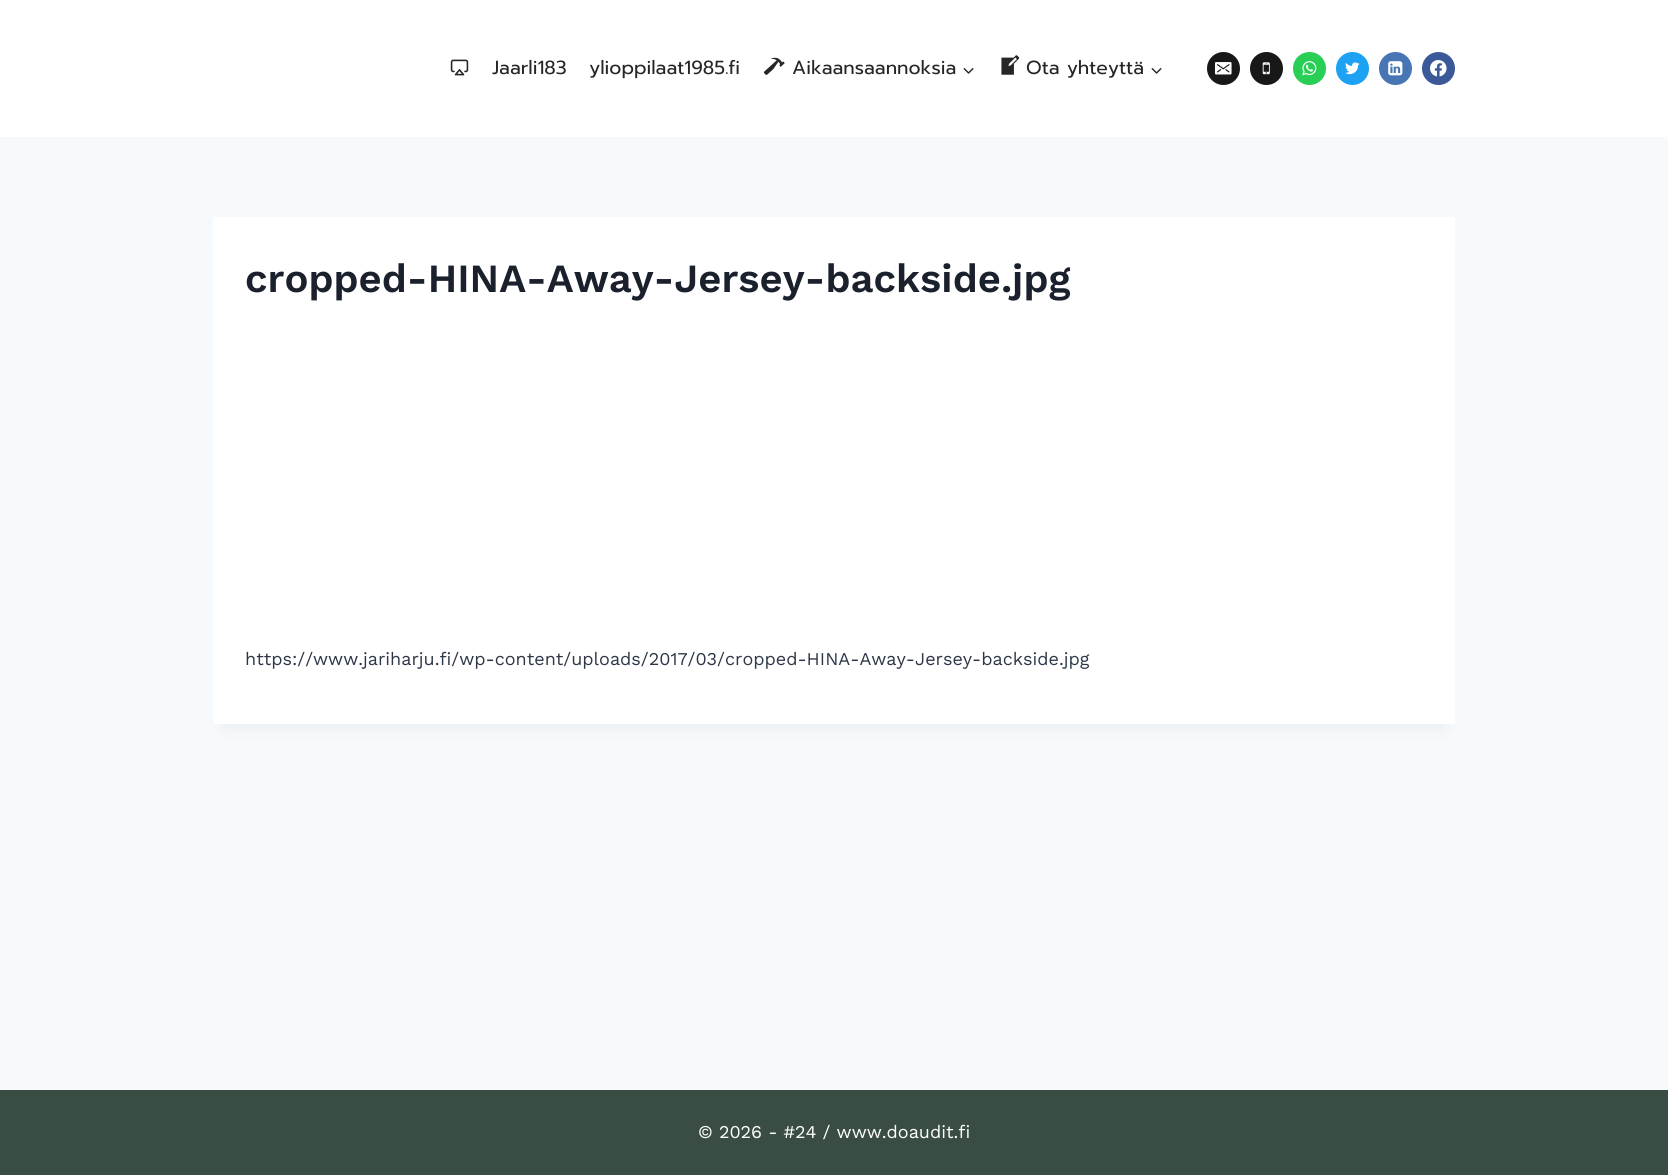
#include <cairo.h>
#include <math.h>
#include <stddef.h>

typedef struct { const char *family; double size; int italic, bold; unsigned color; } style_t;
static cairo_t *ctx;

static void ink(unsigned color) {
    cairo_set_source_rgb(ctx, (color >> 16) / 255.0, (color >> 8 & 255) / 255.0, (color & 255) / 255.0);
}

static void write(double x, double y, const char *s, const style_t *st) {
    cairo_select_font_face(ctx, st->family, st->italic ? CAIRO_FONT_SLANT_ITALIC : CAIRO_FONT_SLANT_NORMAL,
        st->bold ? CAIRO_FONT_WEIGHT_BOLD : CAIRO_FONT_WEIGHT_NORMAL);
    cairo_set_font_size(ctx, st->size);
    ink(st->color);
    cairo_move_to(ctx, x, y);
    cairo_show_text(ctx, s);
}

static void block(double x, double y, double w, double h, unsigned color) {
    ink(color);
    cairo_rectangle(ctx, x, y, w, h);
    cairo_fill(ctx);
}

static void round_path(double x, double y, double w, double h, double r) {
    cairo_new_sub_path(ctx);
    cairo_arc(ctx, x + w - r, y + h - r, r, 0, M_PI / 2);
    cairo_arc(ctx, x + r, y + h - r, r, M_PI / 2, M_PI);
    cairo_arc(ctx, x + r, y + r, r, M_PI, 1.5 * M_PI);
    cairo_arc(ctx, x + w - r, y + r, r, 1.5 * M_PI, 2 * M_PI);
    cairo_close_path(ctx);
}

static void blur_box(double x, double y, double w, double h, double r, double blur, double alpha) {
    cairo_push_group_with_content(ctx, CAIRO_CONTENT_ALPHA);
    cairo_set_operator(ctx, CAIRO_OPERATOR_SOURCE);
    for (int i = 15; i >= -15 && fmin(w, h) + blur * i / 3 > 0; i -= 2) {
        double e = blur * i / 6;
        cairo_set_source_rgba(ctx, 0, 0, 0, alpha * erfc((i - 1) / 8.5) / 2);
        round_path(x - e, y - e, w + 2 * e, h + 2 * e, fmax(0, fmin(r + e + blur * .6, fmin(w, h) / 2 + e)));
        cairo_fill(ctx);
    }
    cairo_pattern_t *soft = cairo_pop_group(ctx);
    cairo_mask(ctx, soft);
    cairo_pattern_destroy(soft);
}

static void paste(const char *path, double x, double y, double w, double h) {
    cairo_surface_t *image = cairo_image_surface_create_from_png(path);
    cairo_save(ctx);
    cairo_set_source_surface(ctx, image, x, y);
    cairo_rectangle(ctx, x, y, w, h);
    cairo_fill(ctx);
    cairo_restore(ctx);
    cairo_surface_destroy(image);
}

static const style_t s1 = {"Prompt", 19, 0, 0, 0x262626};
static const style_t s2 = {"Work Sans SemiBold", 40, 0, 0, 0x1a202c};
static const style_t s3 = {"Work Sans", 18, 0, 0, 0x2d3748};
static const style_t s4 = {"Work Sans", 18, 0, 0, 0xffffff};

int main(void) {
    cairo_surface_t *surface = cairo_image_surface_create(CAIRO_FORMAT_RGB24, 1668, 1175);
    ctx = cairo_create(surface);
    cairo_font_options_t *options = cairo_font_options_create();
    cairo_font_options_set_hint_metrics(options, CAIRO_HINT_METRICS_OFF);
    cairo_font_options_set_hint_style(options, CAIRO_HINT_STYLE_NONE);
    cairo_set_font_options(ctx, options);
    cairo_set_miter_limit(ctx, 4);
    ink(0xf7fafc);
    cairo_paint(ctx);
    block(0, 0, 1668, 137, 0xffffff);
    paste("pic1.png", 450, 59, 19, 17);
    write(492, 74, "Jaarli183", &s1);
    write(589, 74, "ylioppilaat1985.fi", &s1);
    paste("pic2.png", 763, 57, 22, 18);
    write(792, 74, "Aikaansaannoksia", &s1);
    paste("pic3.png", 963, 68, 11, 6);
    paste("pic4.png", 1001, 55, 19, 20);
    write(1026, 74, "Ota yhteyttä", &s1);
    paste("pic3.png", 1151, 68, 11, 6);
    ink(0x181818);
    cairo_arc(ctx, 1223.5, 68.5, 16.5, 0, 2 * M_PI);
    cairo_fill(ctx);
    paste("pic5.png", 1215, 62, 17, 13);
    cairo_arc(ctx, 1266.5, 68.5, 16.5, 0, 2 * M_PI);
    cairo_fill(ctx);
    paste("pic6.png", 1262, 62, 8, 13);
    ink(0x28cf54);
    cairo_arc(ctx, 1309.5, 68.5, 16.5, 0, 2 * M_PI);
    cairo_fill(ctx);
    paste("pic7.png", 1302, 61, 15, 15);
    ink(0x1da1f2);
    cairo_arc(ctx, 1352.5, 68.5, 16.5, 0, 2 * M_PI);
    cairo_fill(ctx);
    paste("pic8.png", 1345, 62, 15, 13);
    ink(0x4875b4);
    cairo_arc(ctx, 1395.5, 68.5, 16.5, 0, 2 * M_PI);
    cairo_fill(ctx);
    paste("pic9.png", 1388, 61, 15, 15);
    ink(0x3b5998);
    cairo_arc(ctx, 1438.5, 68.5, 16.5, 0, 2 * M_PI);
    cairo_fill(ctx);
    paste("pic10.png", 1430, 60, 17, 17);
    ink(0x000000);
    blur_box(223, 242, 1222, 487, 0, 7.5, 0.05);
    block(213, 217, 1242, 507, 0xffffff);
    write(245, 292, "cropped-HINA-Away-Jersey-backside.jpg", &s2);
    write(245, 665, "https://www.jariharju.fi/wp-content/uploads/2017/03/cropped-HINA-Away-Jersey-backside.jpg", &s3);
    block(0, 1090, 1668, 85, 0x394d43);
    write(698, 1138, "© 2026 - #24 / www.doaudit.fi", &s4);
    cairo_surface_write_to_png(surface, "screenshot.png");
    cairo_font_options_destroy(options);
    cairo_destroy(ctx);
    cairo_surface_destroy(surface);
    return 0;
}
